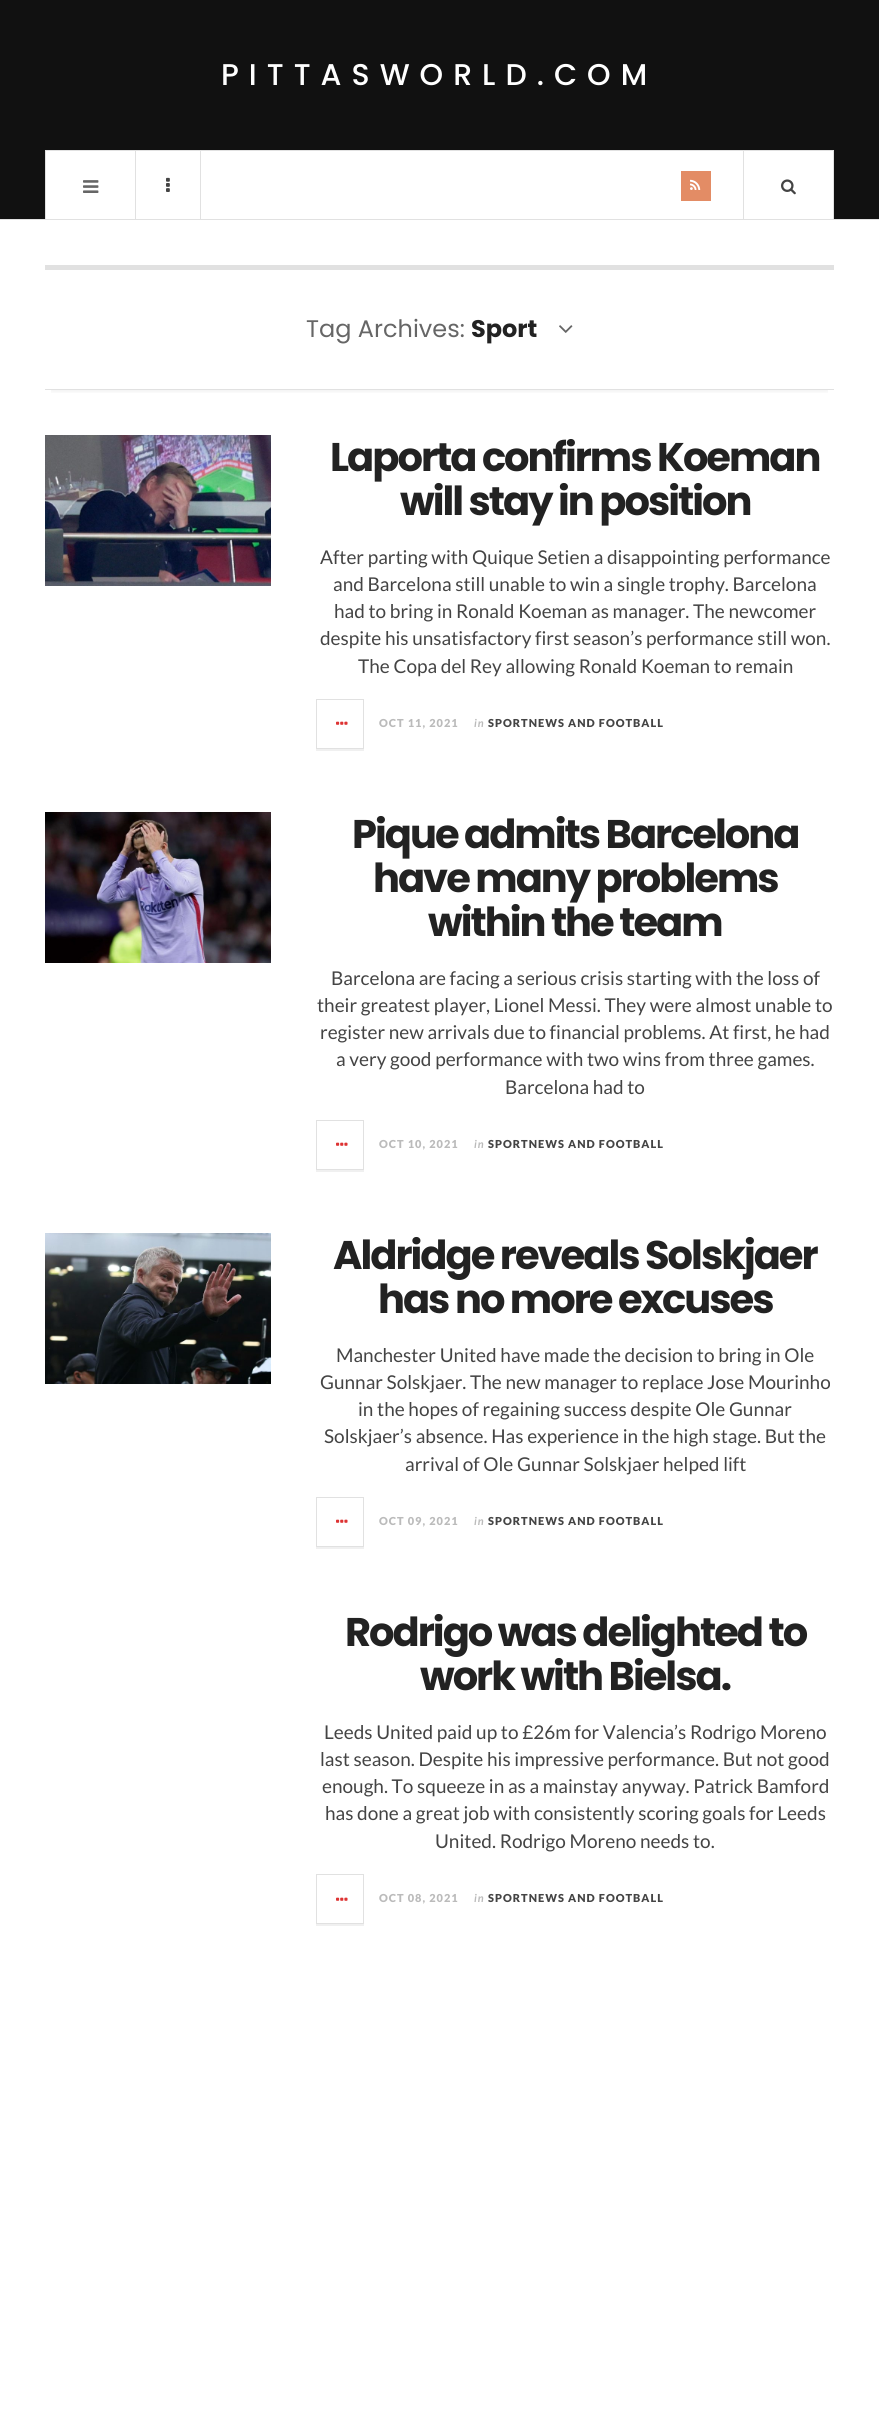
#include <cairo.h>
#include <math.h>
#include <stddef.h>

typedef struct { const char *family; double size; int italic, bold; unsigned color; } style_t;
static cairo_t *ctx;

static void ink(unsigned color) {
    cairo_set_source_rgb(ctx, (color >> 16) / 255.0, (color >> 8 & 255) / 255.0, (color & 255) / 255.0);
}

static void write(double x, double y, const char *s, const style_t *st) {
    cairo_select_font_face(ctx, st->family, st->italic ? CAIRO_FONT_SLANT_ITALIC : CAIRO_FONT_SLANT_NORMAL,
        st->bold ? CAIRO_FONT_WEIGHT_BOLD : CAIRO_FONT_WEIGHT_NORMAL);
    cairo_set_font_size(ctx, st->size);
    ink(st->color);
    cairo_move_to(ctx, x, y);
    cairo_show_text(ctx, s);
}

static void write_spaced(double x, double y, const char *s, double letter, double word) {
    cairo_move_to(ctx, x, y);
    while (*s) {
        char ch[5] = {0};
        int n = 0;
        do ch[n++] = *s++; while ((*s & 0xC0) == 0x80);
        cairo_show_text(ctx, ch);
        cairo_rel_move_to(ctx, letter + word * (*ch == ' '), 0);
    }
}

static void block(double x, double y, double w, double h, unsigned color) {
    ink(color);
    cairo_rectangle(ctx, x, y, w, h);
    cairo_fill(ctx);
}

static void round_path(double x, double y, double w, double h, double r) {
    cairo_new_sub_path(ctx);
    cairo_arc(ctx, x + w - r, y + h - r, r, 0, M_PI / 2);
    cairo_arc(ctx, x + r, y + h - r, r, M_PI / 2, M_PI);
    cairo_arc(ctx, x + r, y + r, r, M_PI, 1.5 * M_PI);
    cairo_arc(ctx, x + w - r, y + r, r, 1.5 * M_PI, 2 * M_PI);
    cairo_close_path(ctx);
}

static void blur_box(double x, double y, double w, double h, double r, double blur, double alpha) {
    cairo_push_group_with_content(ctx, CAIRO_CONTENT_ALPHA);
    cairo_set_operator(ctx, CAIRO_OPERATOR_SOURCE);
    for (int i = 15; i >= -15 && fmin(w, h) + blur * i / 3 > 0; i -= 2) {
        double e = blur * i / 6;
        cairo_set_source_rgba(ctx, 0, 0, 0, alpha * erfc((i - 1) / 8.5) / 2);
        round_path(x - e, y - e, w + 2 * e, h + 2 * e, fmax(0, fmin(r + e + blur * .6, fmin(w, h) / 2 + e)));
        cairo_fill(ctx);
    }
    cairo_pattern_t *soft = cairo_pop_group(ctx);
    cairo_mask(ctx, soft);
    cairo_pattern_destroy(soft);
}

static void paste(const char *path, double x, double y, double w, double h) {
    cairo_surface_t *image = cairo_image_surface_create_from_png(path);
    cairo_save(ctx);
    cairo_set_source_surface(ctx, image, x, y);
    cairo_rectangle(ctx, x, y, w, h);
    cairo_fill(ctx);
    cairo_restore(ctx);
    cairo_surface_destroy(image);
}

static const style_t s1 = {"Poppins", 24, 0, 0, 0x666666};
static const style_t s2 = {"Poppins", 24, 0, 1, 0x222222};
static const style_t s3 = {"Lato", 19, 0, 0, 0x444444};

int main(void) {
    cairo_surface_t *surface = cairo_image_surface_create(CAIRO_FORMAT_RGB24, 879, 2436);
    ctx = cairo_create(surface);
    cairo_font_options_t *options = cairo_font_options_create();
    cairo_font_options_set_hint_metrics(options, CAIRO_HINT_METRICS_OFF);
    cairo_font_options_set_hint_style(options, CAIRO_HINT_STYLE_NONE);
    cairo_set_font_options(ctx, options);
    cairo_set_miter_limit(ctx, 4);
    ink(0xffffff);
    cairo_paint(ctx);
    block(0, 0, 879, 219, 0x111111);
    block(0, 219, 879, 1, 0xe1e1e1);
    cairo_select_font_face(ctx, "Poppins Medium", CAIRO_FONT_SLANT_NORMAL, CAIRO_FONT_WEIGHT_NORMAL);
    cairo_set_font_size(ctx, 30);
    ink(0xffffff);
    write_spaced(221, 85, "PITTASWORLD.COM", 10, 0);
    cairo_rectangle(ctx, 45.5, 150.5, 788, 69);
    cairo_fill_preserve(ctx);
    ink(0xe1e1e1);
    cairo_set_line_width(ctx, 1);
    cairo_stroke(ctx);
    block(135, 151, 1, 68, 0xe1e1e1);
    paste("pic1.png", 83, 180, 16, 13);
    block(200, 151, 1, 68, 0xe1e1e1);
    paste("pic2.png", 166, 177, 4, 15);
    block(681, 171, 30, 30, 0xe38c65);
    paste("pic3.png", 690, 179, 11, 11);
    block(743, 151, 1, 68, 0xe1e1e1);
    paste("pic4.png", 781, 179, 15, 16);
    block(45, 265, 789, 5, 0xe1e1e1);
    cairo_save(ctx);
    cairo_rectangle(ctx, 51, 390, 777, 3);
    cairo_clip(ctx);
    ink(0x000000);
    blur_box(51, 282, 777, 108, 0, 3, 0.1);
    cairo_restore(ctx);
    block(45, 389, 789, 1, 0xe1e1e1);
    write(306, 337, "Tag Archives:", &s1);
    write(471, 337, "Sport", &s2);
    paste("pic5.png", 559, 325, 14, 8);
    paste("pic6.png", 45, 435, 226, 151);
    cairo_set_font_size(ctx, 40);
    write_spaced(330, 471, "Laporta confirms Koeman", -2, 0);
    write_spaced(400, 515, "will stay in position", -2, 0);
    write(320, 564, "After parting with Quique Setien a disappointing performance", &s3);
    write(333, 591, "and Barcelona still unable to win a single trophy. Barcelona", &s3);
    write(334, 618, "had to bring in Ronald Koeman as manager. The newcomer", &s3);
    write(320, 645, "despite his unsatisfactory first season’s performance still won.", &s3);
    write(358, 673, "The Copa del Rey allowing Ronald Koeman to remain", &s3);
    block(316, 749, 48, 2, 0xf0f0f0);
    cairo_rectangle(ctx, 316.5, 699.5, 47, 49);
    ink(0xe1e1e1);
    cairo_stroke(ctx);
    paste("pic7.png", 336, 721, 12, 4);
    cairo_select_font_face(ctx, "Lato Black", CAIRO_FONT_SLANT_NORMAL, CAIRO_FONT_WEIGHT_NORMAL);
    cairo_set_font_size(ctx, 11);
    ink(0xbbbbbb);
    write_spaced(379, 727, "OCT 11, 2021", 1, 0);
    cairo_select_font_face(ctx, "Lato", CAIRO_FONT_SLANT_ITALIC, CAIRO_FONT_WEIGHT_BOLD);
    write_spaced(474, 727, "in", 1, 0);
    cairo_select_font_face(ctx, "Lato Black", CAIRO_FONT_SLANT_NORMAL, CAIRO_FONT_WEIGHT_NORMAL);
    ink(0x444444);
    write_spaced(488, 727, "SPORTNEWS AND FOOTBALL", 1, 0);
    paste("pic8.png", 45, 812, 226, 151);
    cairo_select_font_face(ctx, "Poppins", CAIRO_FONT_SLANT_NORMAL, CAIRO_FONT_WEIGHT_BOLD);
    cairo_set_font_size(ctx, 40);
    ink(0x222222);
    write_spaced(352, 848, "Pique admits Barcelona", -2, 0);
    write_spaced(373, 892, "have many problems", -2, 0);
    write_spaced(428, 936, "within the team", -2, 0);
    write(331, 985, "Barcelona are facing a serious crisis starting with the loss of", &s3);
    write(317, 1012, "their greatest player, Lionel Messi. They were almost unable to", &s3);
    write(320, 1039, "register new arrivals due to financial problems. At first, he had", &s3);
    write(336, 1066, "a very good performance with two wins from three games.", &s3);
    write(505, 1094, "Barcelona had to", &s3);
    block(316, 1170, 48, 2, 0xf0f0f0);
    cairo_rectangle(ctx, 316.5, 1120.5, 47, 49);
    ink(0xe1e1e1);
    cairo_stroke(ctx);
    paste("pic7.png", 336, 1142, 12, 4);
    cairo_select_font_face(ctx, "Lato Black", CAIRO_FONT_SLANT_NORMAL, CAIRO_FONT_WEIGHT_NORMAL);
    cairo_set_font_size(ctx, 11);
    ink(0xbbbbbb);
    write_spaced(379, 1148, "OCT 10, 2021", 1, 0);
    cairo_select_font_face(ctx, "Lato", CAIRO_FONT_SLANT_ITALIC, CAIRO_FONT_WEIGHT_BOLD);
    write_spaced(474, 1148, "in", 1, 0);
    cairo_select_font_face(ctx, "Lato Black", CAIRO_FONT_SLANT_NORMAL, CAIRO_FONT_WEIGHT_NORMAL);
    ink(0x444444);
    write_spaced(488, 1148, "SPORTNEWS AND FOOTBALL", 1, 0);
    paste("pic9.png", 45, 1233, 226, 151);
    cairo_select_font_face(ctx, "Poppins", CAIRO_FONT_SLANT_NORMAL, CAIRO_FONT_WEIGHT_BOLD);
    cairo_set_font_size(ctx, 40);
    ink(0x222222);
    write_spaced(333, 1269, "Aldridge reveals Solskjaer", -2, 0);
    write_spaced(378, 1313, "has no more excuses", -2, 0);
    write(336, 1362, "Manchester United have made the decision to bring in Ole", &s3);
    write(320, 1389, "Gunnar Solskjaer. The new manager to replace Jose Mourinho", &s3);
    write(358, 1416, "in the hopes of regaining success despite Ole Gunnar", &s3);
    write(324, 1443, "Solskjaer’s absence. Has experience in the high stage. But the", &s3);
    write(405, 1471, "arrival of Ole Gunnar Solskjaer helped lift", &s3);
    block(316, 1547, 48, 2, 0xf0f0f0);
    cairo_rectangle(ctx, 316.5, 1497.5, 47, 49);
    ink(0xe1e1e1);
    cairo_stroke(ctx);
    paste("pic7.png", 336, 1519, 12, 4);
    cairo_select_font_face(ctx, "Lato Black", CAIRO_FONT_SLANT_NORMAL, CAIRO_FONT_WEIGHT_NORMAL);
    cairo_set_font_size(ctx, 11);
    ink(0xbbbbbb);
    write_spaced(379, 1525, "OCT 09, 2021", 1, 0);
    cairo_select_font_face(ctx, "Lato", CAIRO_FONT_SLANT_ITALIC, CAIRO_FONT_WEIGHT_BOLD);
    write_spaced(474, 1525, "in", 1, 0);
    cairo_select_font_face(ctx, "Lato Black", CAIRO_FONT_SLANT_NORMAL, CAIRO_FONT_WEIGHT_NORMAL);
    ink(0x444444);
    write_spaced(488, 1525, "SPORTNEWS AND FOOTBALL", 1, 0);
    cairo_select_font_face(ctx, "Poppins", CAIRO_FONT_SLANT_NORMAL, CAIRO_FONT_WEIGHT_BOLD);
    cairo_set_font_size(ctx, 40);
    ink(0x222222);
    write_spaced(345, 1646, "Rodrigo was delighted to", -2, 0);
    write_spaced(420, 1690, "work with Bielsa.", -2, 0);
    write(324, 1739, "Leeds United paid up to £26m for Valencia’s Rodrigo Moreno", &s3);
    write(320, 1766, "last season. Despite his impressive performance. But not good", &s3);
    write(322, 1793, "enough. To squeeze in as a mainstay anyway. Patrick Bamford", &s3);
    write(325, 1820, "has done a great job with consistently scoring goals for Leeds", &s3);
    write(435, 1848, "United. Rodrigo Moreno needs to.", &s3);
    block(316, 1924, 48, 2, 0xf0f0f0);
    cairo_rectangle(ctx, 316.5, 1874.5, 47, 49);
    ink(0xe1e1e1);
    cairo_stroke(ctx);
    paste("pic7.png", 336, 1897, 12, 4);
    cairo_select_font_face(ctx, "Lato Black", CAIRO_FONT_SLANT_NORMAL, CAIRO_FONT_WEIGHT_NORMAL);
    cairo_set_font_size(ctx, 11);
    ink(0xbbbbbb);
    write_spaced(379, 1902, "OCT 08, 2021", 1, 0);
    cairo_select_font_face(ctx, "Lato", CAIRO_FONT_SLANT_ITALIC, CAIRO_FONT_WEIGHT_BOLD);
    write_spaced(474, 1902, "in", 1, 0);
    cairo_select_font_face(ctx, "Lato Black", CAIRO_FONT_SLANT_NORMAL, CAIRO_FONT_WEIGHT_NORMAL);
    ink(0x444444);
    write_spaced(488, 1902, "SPORTNEWS AND FOOTBALL", 1, 0);
    cairo_surface_write_to_png(surface, "screenshot.png");
    cairo_font_options_destroy(options);
    cairo_destroy(ctx);
    cairo_surface_destroy(surface);
    return 0;
}
